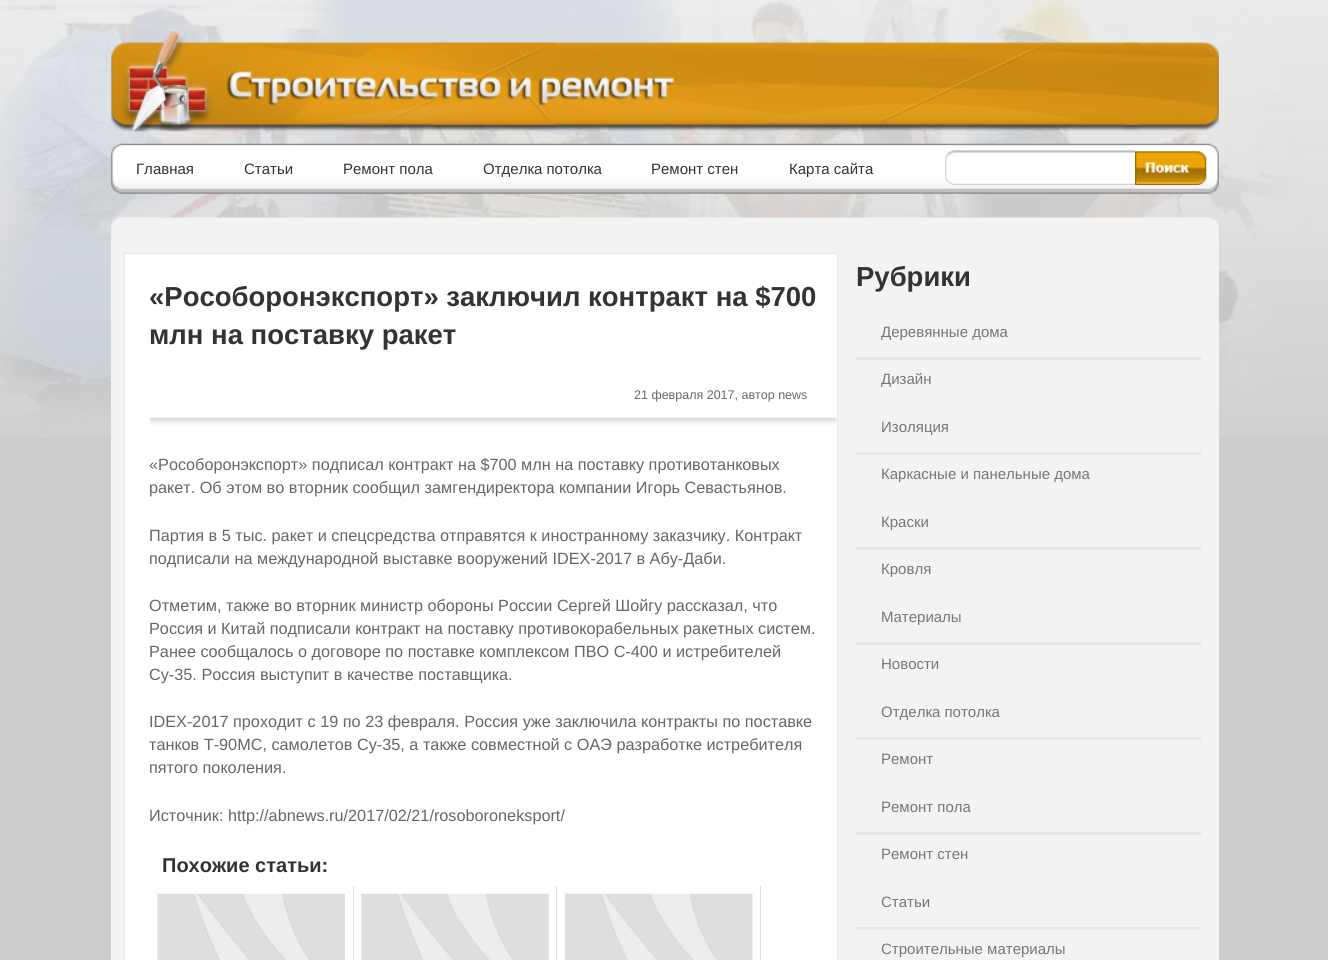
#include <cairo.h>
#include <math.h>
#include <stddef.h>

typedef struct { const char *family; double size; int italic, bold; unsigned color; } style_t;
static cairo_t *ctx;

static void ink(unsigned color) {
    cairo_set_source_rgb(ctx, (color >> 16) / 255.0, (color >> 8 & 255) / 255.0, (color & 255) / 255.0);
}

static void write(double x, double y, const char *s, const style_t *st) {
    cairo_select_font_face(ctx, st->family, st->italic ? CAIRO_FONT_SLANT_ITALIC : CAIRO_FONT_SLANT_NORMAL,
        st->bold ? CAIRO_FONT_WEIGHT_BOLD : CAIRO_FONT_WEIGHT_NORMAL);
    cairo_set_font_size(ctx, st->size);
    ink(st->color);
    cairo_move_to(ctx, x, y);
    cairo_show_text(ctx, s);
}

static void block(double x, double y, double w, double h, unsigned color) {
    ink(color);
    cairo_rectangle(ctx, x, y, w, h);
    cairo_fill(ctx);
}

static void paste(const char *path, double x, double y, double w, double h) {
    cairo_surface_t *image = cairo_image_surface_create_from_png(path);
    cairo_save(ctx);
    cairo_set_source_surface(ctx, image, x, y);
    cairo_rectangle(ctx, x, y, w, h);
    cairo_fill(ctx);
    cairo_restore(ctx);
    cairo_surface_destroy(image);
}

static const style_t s1 = {"Liberation Sans", 15, 0, 0, 0x333333};
static const style_t s2 = {"Liberation Sans", 27.5, 0, 1, 0x333333};
static const style_t s3 = {"Liberation Sans", 12.5, 0, 0, 0x666666};
static const style_t s4 = {"Liberation Sans", 16.25, 0, 0, 0x666666};
static const style_t s5 = {"Liberation Sans", 20, 0, 1, 0x333333};
static const style_t s6 = {"Liberation Sans", 15, 0, 0, 0x777777};

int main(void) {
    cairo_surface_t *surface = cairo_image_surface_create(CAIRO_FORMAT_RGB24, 1328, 960);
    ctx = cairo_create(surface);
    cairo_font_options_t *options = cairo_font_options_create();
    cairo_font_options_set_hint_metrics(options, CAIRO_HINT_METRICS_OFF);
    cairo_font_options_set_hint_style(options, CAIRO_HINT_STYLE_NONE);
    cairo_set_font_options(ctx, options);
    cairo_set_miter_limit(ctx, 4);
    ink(0xcccccc);
    cairo_paint(ctx);
    paste("pic1.png", 0, 0, 1328, 437);
    paste("pic2.png", 111, 29, 1108, 103);
    paste("pic3.png", 226, 71, 448, 35);
    paste("pic4.png", 111, 143, 1108, 51);
    write(136, 174, "Главная", &s1);
    write(244, 174, "Статьи", &s1);
    write(343, 174, "Ремонт пола", &s1);
    write(483, 174, "Отделка потолка", &s1);
    write(651, 174, "Ремонт стен", &s1);
    write(789, 174, "Карта сайта", &s1);
    paste("pic5.png", 945, 150, 190, 35);
    paste("pic6.png", 1135, 151, 72, 34);
    paste("pic7.png", 111, 217, 1108, 23);
    block(111, 240, 1108, 720, 0xf3f3f3);
    ink(0xffffff);
    cairo_rectangle(ctx, 124.5, 253.5, 713, 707);
    cairo_fill_preserve(ctx);
    ink(0xe7e7e7);
    cairo_set_line_width(ctx, 1);
    cairo_stroke(ctx);
    write(149, 306, "«Рособоронэкспорт» заключил контракт на $700", &s2);
    write(149, 344, "млн на поставку ракет", &s2);
    write(634, 399, "21 февраля 2017, автор news", &s3);
    paste("pic8.png", 150, 417, 687, 8);
    write(149, 470, "«Рособоронэкспорт» подписал контракт на $700 млн на поставку противотанковых", &s4);
    write(149, 493, "ракет. Об этом во вторник сообщил замгендиректора компании Игорь Севастьянов.", &s4);
    write(149, 541, "Партия в 5 тыс. ракет и спецсредства отправятся к иностранному заказчику. Контракт", &s4);
    write(149, 564, "подписали на международной выставке вооружений IDEX-2017 в Абу-Даби.", &s4);
    write(149, 611, "Отметим, также во вторник министр обороны России Сергей Шойгу рассказал, что", &s4);
    write(149, 634, "Россия и Китай подписали контракт на поставку противокорабельных ракетных систем.", &s4);
    write(149, 657, "Ранее сообщалось о договоре по поставке комплексом ПВО С-400 и истребителей", &s4);
    write(149, 680, "Су-35. Россия выступит в качестве поставщика.", &s4);
    write(149, 727, "IDEX-2017 проходит с 19 по 23 февраля. Россия уже заключила контракты по поставке", &s4);
    write(149, 750, "танков Т-90МС, самолетов Су-35, а также совместной с ОАЭ разработке истребителя", &s4);
    write(149, 773, "пятого поколения.", &s4);
    write(149, 821, "Источник: http://abnews.ru/2017/02/21/rosoboroneksport/", &s4);
    write(162, 872, "Похожие статьи:", &s5);
    block(353, 886, 1, 74, 0xdddddd);
    paste("pic9.png", 157, 893, 188, 67);
    block(556, 886, 1, 74, 0xdddddd);
    paste("pic10.png", 361, 893, 188, 67);
    block(760, 886, 1, 74, 0xdddddd);
    paste("pic11.png", 565, 893, 188, 67);
    write(856, 286, "Рубрики", &s2);
    write(881, 337, "Деревянные дома", &s6);
    block(856, 357, 345, 3, 0xe7e7e7);
    write(881, 384, "Дизайн", &s6);
    write(881, 432, "Изоляция", &s6);
    block(856, 452, 345, 3, 0xe7e7e7);
    write(881, 479, "Каркасные и панельные дома", &s6);
    write(881, 527, "Краски", &s6);
    block(856, 547, 345, 3, 0xe7e7e7);
    write(881, 574, "Кровля", &s6);
    write(881, 622, "Материалы", &s6);
    block(856, 642, 345, 3, 0xe7e7e7);
    write(881, 669, "Новости", &s6);
    write(881, 717, "Отделка потолка", &s6);
    block(856, 737, 345, 3, 0xe7e7e7);
    write(881, 764, "Ремонт", &s6);
    write(881, 812, "Ремонт пола", &s6);
    block(856, 832, 345, 3, 0xe7e7e7);
    write(881, 859, "Ремонт стен", &s6);
    write(881, 907, "Статьи", &s6);
    block(856, 927, 345, 3, 0xe7e7e7);
    write(881, 954, "Строительные материалы", &s6);
    cairo_surface_write_to_png(surface, "screenshot.png");
    cairo_font_options_destroy(options);
    cairo_destroy(ctx);
    cairo_surface_destroy(surface);
    return 0;
}
